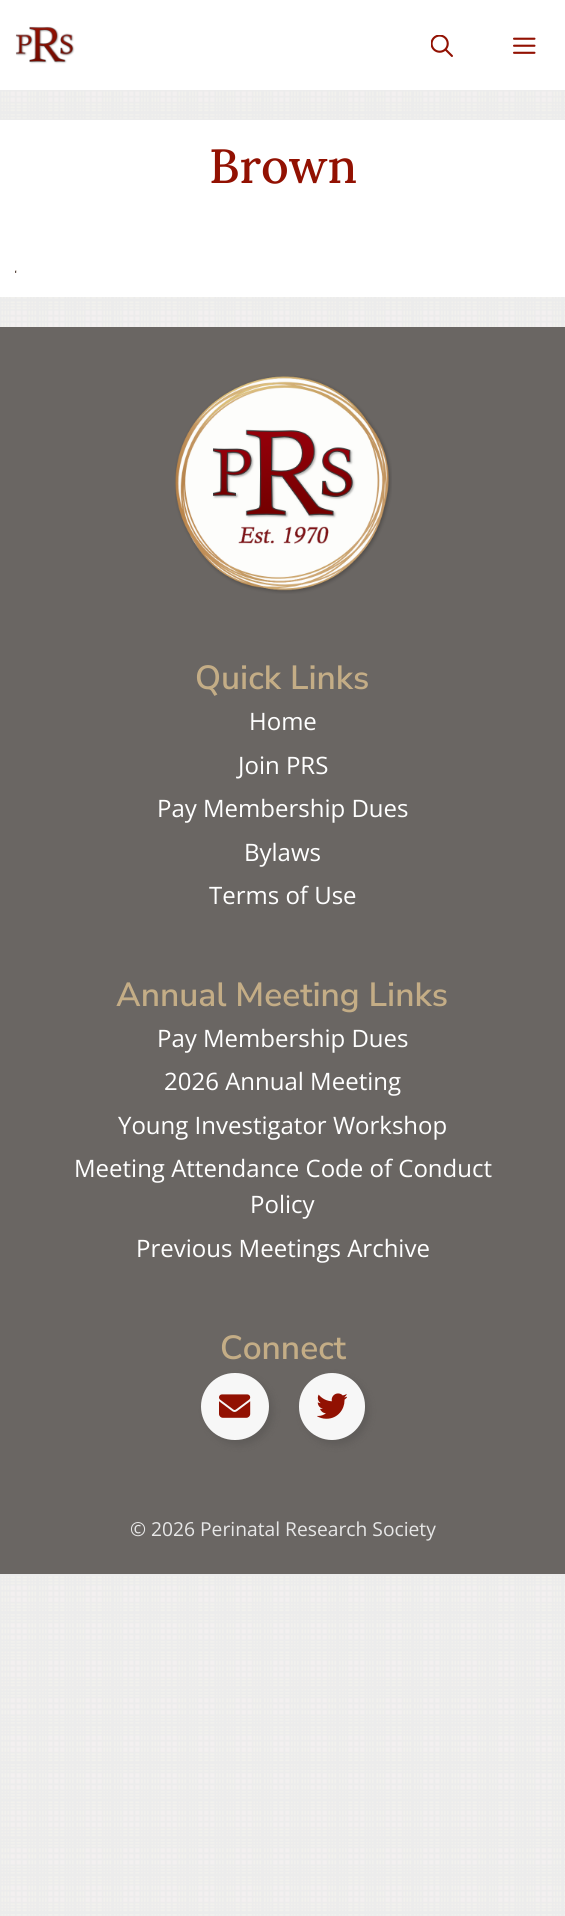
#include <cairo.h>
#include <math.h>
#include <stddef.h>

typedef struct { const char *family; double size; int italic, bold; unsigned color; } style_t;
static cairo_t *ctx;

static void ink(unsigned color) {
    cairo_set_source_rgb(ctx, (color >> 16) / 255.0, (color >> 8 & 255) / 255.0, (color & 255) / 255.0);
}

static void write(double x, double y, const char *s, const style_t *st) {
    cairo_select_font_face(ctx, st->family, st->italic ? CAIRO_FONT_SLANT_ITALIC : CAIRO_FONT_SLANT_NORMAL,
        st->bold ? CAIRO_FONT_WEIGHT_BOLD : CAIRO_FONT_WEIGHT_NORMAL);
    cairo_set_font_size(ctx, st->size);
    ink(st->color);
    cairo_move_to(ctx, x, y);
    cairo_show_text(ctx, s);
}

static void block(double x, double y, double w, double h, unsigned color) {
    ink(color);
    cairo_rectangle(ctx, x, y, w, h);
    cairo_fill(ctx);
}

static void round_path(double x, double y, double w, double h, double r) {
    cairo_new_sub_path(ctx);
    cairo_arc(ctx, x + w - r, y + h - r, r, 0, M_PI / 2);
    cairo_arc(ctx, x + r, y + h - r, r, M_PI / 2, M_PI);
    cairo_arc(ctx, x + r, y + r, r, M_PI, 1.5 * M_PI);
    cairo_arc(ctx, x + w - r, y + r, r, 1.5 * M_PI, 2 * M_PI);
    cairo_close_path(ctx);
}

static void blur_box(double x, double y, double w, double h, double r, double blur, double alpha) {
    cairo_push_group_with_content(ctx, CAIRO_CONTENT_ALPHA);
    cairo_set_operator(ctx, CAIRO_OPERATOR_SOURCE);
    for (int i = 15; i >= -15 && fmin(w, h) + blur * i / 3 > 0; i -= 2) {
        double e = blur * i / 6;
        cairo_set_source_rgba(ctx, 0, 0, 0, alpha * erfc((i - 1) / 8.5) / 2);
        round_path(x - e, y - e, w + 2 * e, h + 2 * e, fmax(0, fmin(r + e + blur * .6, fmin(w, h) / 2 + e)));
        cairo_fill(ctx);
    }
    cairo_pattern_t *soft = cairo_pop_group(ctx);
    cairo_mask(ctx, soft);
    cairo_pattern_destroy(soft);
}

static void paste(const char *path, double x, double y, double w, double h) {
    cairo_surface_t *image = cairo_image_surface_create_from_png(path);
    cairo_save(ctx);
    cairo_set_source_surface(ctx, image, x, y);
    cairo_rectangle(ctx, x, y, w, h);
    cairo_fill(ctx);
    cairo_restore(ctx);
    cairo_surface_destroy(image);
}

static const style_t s1 = {"Lora Medium", 48, 0, 0, 0x921102};
static const style_t s2 = {"Nunito Sans SemiBold", 33.5, 0, 0, 0xc4ad86};
static const style_t s3 = {"Open Sans", 24, 0, 0, 0xffffff};
static const style_t s4 = {"Open Sans", 19.25, 0, 0, 0xe7e7e7};

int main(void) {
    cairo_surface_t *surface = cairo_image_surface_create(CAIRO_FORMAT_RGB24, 565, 1916);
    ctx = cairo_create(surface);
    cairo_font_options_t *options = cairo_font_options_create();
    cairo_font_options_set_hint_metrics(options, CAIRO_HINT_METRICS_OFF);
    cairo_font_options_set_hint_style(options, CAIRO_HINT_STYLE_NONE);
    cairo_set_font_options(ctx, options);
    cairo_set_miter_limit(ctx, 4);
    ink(0xffffff);
    cairo_paint(ctx);
    paste("pic1.png", 0, 90, 565, 1826);
    paste("pic2.png", 15, 26, 60, 38);
    paste("pic3.png", 431, 35, 22, 22);
    paste("pic4.png", 513, 37, 23, 17);
    block(0, 120, 565, 177, 0xffffff);
    write(209, 183, "Brown", &s1);
    paste("pic5.png", 15, 270, 2, 3);
    block(0, 327, 565, 1247, 0x6a6663);
    paste("pic6.png", 175, 376, 217, 218);
    write(195, 689, "Quick Links", &s2);
    write(249, 730, "Home", &s3);
    write(238, 774, "Join PRS", &s3);
    write(157, 817, "Pay Membership Dues", &s3);
    write(244, 861, "Bylaws", &s3);
    write(209, 904, "Terms of Use", &s3);
    write(116, 1006, "Annual Meeting Links", &s2);
    write(157, 1047, "Pay Membership Dues", &s3);
    write(164, 1090, "2026 Annual Meeting", &s3);
    write(118, 1134, "Young Investigator Workshop", &s3);
    write(74, 1177, "Meeting Attendance Code of Conduct", &s3);
    write(250, 1213, "Policy", &s3);
    write(136, 1257, "Previous Meetings Archive", &s3);
    write(220, 1359, "Connect", &s2);
    ink(0x323232);
    blur_box(206, 1377, 67, 68, 33.5, 4, 0.2);
    ink(0xf7f7f7);
    round_path(201, 1373, 68, 67, 33.5);
    cairo_fill(ctx);
    paste("pic7.png", 219, 1394, 32, 24);
    ink(0x323232);
    blur_box(303, 1377, 66, 68, 33, 4, 0.2);
    ink(0xf7f7f7);
    round_path(299, 1373, 66, 67, 33);
    cairo_fill(ctx);
    paste("pic8.png", 317, 1393, 30, 26);
    write(130, 1536, "© 2026 Perinatal Research Society", &s4);
    cairo_surface_write_to_png(surface, "screenshot.png");
    cairo_font_options_destroy(options);
    cairo_destroy(ctx);
    cairo_surface_destroy(surface);
    return 0;
}
